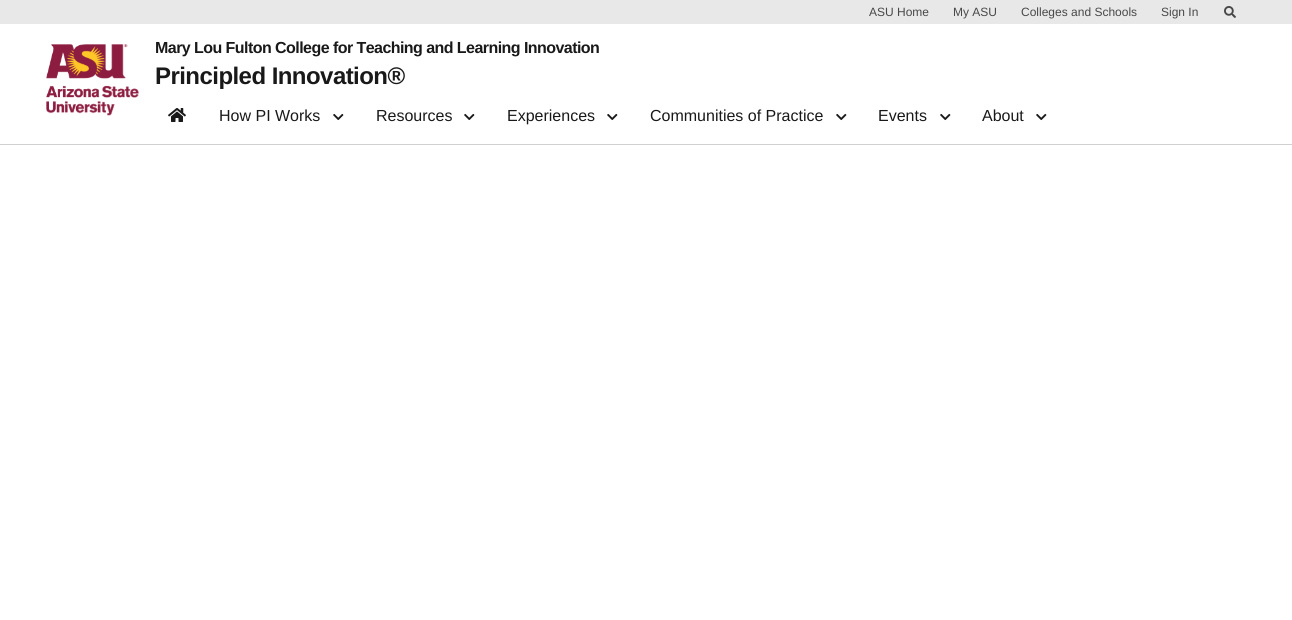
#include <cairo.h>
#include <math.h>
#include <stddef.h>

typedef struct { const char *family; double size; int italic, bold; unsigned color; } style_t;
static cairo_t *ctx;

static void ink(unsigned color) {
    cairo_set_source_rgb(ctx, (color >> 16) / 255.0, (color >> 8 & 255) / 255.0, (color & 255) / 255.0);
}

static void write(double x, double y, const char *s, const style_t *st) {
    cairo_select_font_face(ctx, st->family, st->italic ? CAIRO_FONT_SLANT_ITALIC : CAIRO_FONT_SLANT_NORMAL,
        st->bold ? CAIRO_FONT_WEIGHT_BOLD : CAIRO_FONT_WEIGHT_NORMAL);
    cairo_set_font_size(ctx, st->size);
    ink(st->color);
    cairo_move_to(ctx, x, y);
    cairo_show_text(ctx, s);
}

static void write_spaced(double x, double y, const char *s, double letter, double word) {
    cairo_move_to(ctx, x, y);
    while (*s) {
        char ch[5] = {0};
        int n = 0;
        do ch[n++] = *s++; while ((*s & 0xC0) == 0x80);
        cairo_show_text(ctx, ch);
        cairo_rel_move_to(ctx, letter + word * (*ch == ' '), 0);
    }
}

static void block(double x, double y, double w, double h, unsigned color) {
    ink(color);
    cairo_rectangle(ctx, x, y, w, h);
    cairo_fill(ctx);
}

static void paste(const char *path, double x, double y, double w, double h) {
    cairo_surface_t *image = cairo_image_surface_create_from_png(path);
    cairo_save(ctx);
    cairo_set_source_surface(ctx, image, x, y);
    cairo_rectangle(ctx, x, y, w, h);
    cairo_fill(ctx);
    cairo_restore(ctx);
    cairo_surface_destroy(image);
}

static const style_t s1 = {"Liberation Sans", 12, 0, 0, 0x484848};
static const style_t s2 = {"Liberation Sans", 16, 0, 0, 0x191919};

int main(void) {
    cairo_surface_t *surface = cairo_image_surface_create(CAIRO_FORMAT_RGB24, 1292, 620);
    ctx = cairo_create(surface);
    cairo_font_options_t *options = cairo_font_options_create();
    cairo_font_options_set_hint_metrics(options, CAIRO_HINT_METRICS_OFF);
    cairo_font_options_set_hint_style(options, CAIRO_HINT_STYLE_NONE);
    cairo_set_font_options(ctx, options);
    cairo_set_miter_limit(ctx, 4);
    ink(0xffffff);
    cairo_paint(ctx);
    block(0, 0, 1292, 24, 0xe8e8e8);
    write(869, 16, "ASU Home", &s1);
    write(953, 16, "My ASU", &s1);
    write(1021, 16, "Colleges and Schools", &s1);
    write(1161, 16, "Sign In", &s1);
    paste("pic1.png", 1224, 6, 12, 12);
    block(0, 144, 1292, 1, 0xd0d0d0);
    paste("pic2.png", 46, 44, 93, 72);
    cairo_select_font_face(ctx, "Liberation Sans", CAIRO_FONT_SLANT_NORMAL, CAIRO_FONT_WEIGHT_BOLD);
    cairo_set_font_size(ctx, 16);
    ink(0x191919);
    write_spaced(155, 53, "Mary Lou Fulton College for Teaching and Learning Innovation", -0.55, 0);
    cairo_set_font_size(ctx, 24);
    write_spaced(155, 84, "Principled Innovation®", -0.55, 0);
    paste("pic3.png", 168, 108, 18, 14);
    write(219, 121, "How PI Works", &s2);
    paste("pic4.png", 333, 113, 11, 8);
    write(376, 121, "Resources", &s2);
    paste("pic4.png", 464, 113, 11, 8);
    write(507, 121, "Experiences", &s2);
    paste("pic4.png", 607, 113, 11, 8);
    write(650, 121, "Communities of Practice", &s2);
    paste("pic4.png", 836, 113, 11, 8);
    write(878, 121, "Events", &s2);
    paste("pic4.png", 940, 113, 11, 8);
    write(982, 121, "About", &s2);
    paste("pic4.png", 1036, 113, 11, 8);
    cairo_surface_write_to_png(surface, "screenshot.png");
    cairo_font_options_destroy(options);
    cairo_destroy(ctx);
    cairo_surface_destroy(surface);
    return 0;
}
